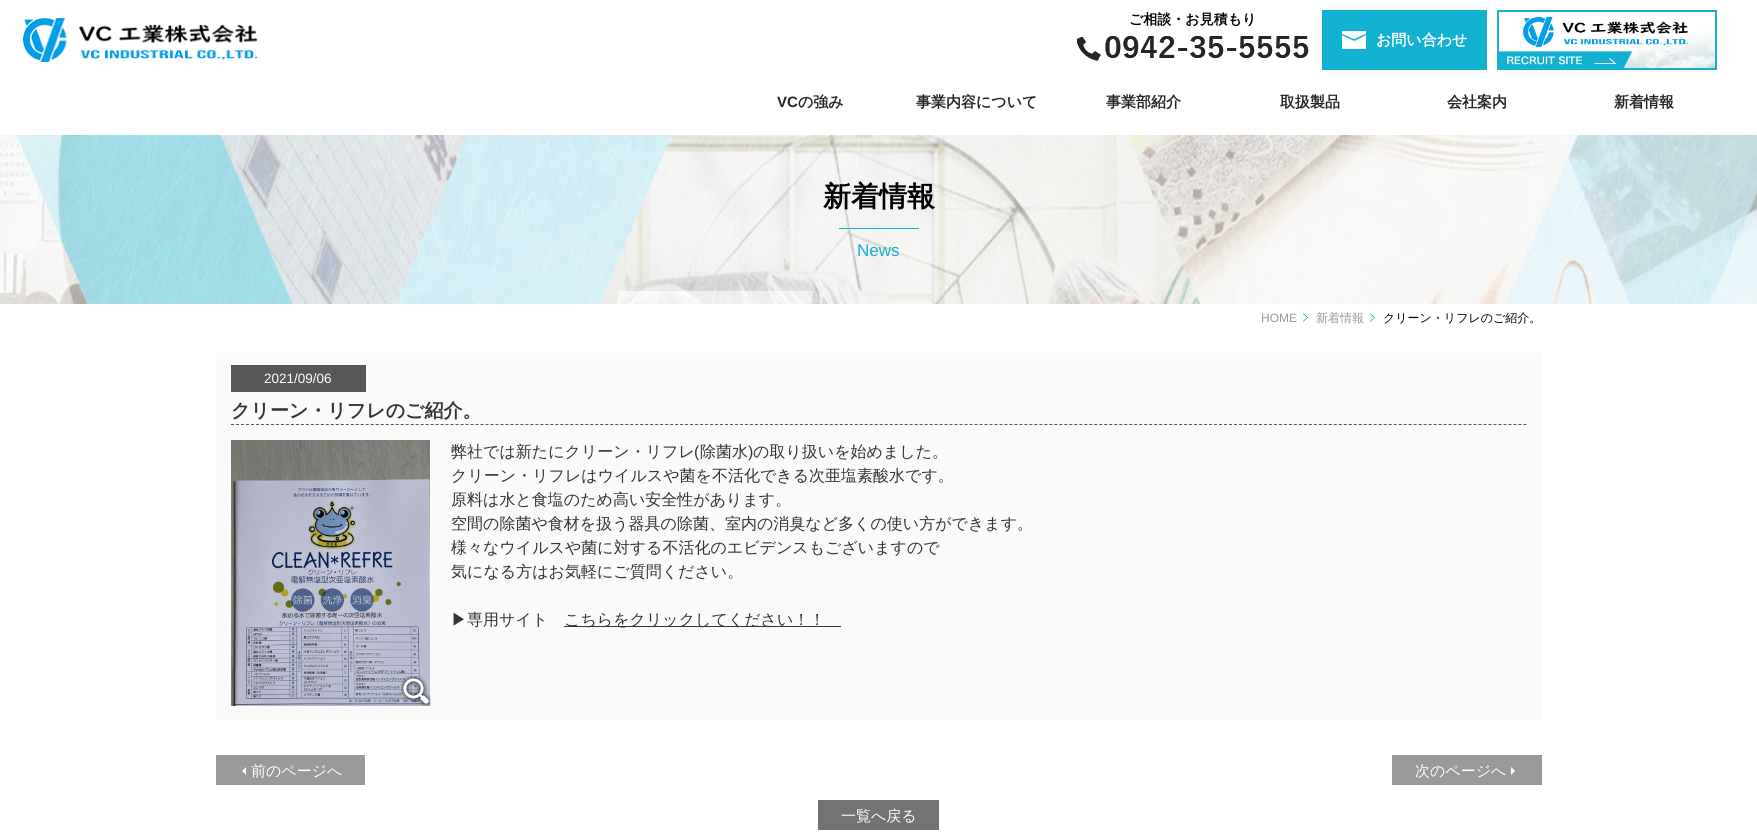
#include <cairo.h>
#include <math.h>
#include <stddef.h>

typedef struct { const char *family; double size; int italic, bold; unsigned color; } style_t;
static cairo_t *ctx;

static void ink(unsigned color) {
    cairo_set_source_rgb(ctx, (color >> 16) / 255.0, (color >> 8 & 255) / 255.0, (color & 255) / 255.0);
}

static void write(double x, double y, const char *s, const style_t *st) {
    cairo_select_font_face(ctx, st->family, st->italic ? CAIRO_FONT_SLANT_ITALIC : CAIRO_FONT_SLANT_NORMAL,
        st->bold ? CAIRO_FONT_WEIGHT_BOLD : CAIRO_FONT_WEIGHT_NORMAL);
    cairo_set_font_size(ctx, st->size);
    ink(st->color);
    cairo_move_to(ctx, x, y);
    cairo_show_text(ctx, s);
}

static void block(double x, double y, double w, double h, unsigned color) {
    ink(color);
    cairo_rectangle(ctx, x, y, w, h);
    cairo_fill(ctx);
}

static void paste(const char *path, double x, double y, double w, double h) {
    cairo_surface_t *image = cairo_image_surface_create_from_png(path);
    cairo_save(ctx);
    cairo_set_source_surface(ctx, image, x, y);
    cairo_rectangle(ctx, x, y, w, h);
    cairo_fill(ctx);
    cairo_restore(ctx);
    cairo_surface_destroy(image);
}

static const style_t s1 = {"WenQuanYi Zen Hei", 14, 0, 1, 0x000000};
static const style_t s2 = {"WenQuanYi Zen Hei", 15, 0, 1, 0xffffff};
static const style_t s3 = {"Liberation Sans", 15, 0, 1, 0x252525};
static const style_t s4 = {"WenQuanYi Zen Hei", 15, 0, 1, 0x252525};
static const style_t s5 = {"WenQuanYi Zen Hei", 28, 0, 1, 0x000000};
static const style_t s6 = {"Liberation Sans", 17, 0, 0, 0x12b0d1};
static const style_t s7 = {"Liberation Sans", 12, 0, 0, 0x999999};
static const style_t s8 = {"WenQuanYi Zen Hei Medium", 12, 0, 0, 0x999999};
static const style_t s9 = {"WenQuanYi Zen Hei Medium", 12, 0, 0, 0x000000};
static const style_t s10 = {"Liberation Sans", 13.5, 0, 0, 0xffffff};
static const style_t s11 = {"WenQuanYi Zen Hei", 19, 0, 1, 0x313439};
static const style_t s12 = {"WenQuanYi Zen Hei Medium", 16, 0, 0, 0x313439};
static const style_t s13 = {"Liberation Sans", 16, 0, 0, 0x313439};
static const style_t s14 = {"WenQuanYi Zen Hei Medium", 15, 0, 0, 0xffffff};

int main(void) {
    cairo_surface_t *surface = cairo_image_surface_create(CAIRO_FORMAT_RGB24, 1757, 838);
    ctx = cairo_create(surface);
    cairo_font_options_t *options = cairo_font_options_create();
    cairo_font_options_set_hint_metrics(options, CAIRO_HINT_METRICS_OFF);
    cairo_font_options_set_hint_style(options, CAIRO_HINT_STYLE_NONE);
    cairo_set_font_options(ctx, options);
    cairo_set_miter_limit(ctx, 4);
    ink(0xffffff);
    cairo_paint(ctx);
    paste("pic1.png", 23, 18, 235, 45);
    write(1129, 24, "ご相談・お見積もり", &s1);
    paste("pic2.png", 1077, 36, 232, 25);
    paste("pic3.png", 1497, 10, 220, 60);
    block(1322, 10, 165, 60, 0x12b0d1);
    paste("pic4.png", 1342, 31, 24, 18);
    write(1376, 45, "お問い合わせ", &s2);
    write(777, 107, "VC", &s3);
    write(798, 107, "の強み", &s4);
    write(916, 107, "事業内容について", &s4);
    write(1106, 107, "事業部紹介", &s4);
    write(1280, 107, "取扱製品", &s4);
    write(1447, 107, "会社案内", &s4);
    write(1614, 107, "新着情報", &s4);
    paste("pic5.png", 0, 135, 1757, 169);
    write(823, 206, "新着情報", &s5);
    block(839, 228, 80, 1, 0x12b0d1);
    write(857, 256, "News", &s6);
    write(1261, 322, "HOME", &s7);
    paste("pic6.png", 1303, 313, 5, 9);
    write(1316, 322, "新着情報", &s8);
    paste("pic6.png", 1370, 313, 5, 9);
    write(1383, 322, "クリーン・リフレのご紹介。", &s9);
    block(216, 353, 1326, 367, 0xfafafa);
    cairo_new_path(ctx);
    cairo_move_to(ctx, 231, 424.5);
    cairo_line_to(ctx, 1527, 424.5);
    ink(0x575757);
    cairo_set_line_width(ctx, 1);
    cairo_set_dash(ctx, (double[]){3, 1.99}, 2, 0);
    cairo_stroke(ctx);
    block(231, 365, 135, 27, 0x575757);
    write(264, 383, "2021/09/06", &s10);
    write(231, 417, "クリーン・リフレのご紹介。", &s11);
    paste("pic7.png", 231, 440, 199, 266);
    paste("pic8.png", 401, 676, 30, 30);
    write(451, 457, "弊社では新たにクリーン・リフレ", &s12);
    write(694, 457, "(", &s13);
    write(700, 457, "除菌水", &s12);
    write(748, 457, ")", &s13);
    write(753, 457, "の取り扱いを始めました。", &s12);
    write(451, 481, "クリーン・リフレはウイルスや菌を不活化できる次亜塩素酸水です。", &s12);
    write(451, 505, "原料は水と食塩のため高い安全性があります。", &s12);
    write(451, 529, "空間の除菌や食材を扱う器具の除菌、室内の消臭など多くの使い方ができます。", &s12);
    write(451, 553, "様々なウイルスや菌に対する不活化のエビデンスもございますので", &s12);
    write(451, 577, "気になる方はお気軽にご質問ください。", &s12);
    write(451, 625, "▶専用サイト", &s12);
    block(564, 626, 277, 1, 0x313439);
    write(564, 625, "こちらをクリックしてください！！", &s12);
    block(216, 755, 149, 30, 0x999999);
    ink(0xffffff);
    cairo_new_path(ctx);
    cairo_move_to(ctx, 246, 767);
    cairo_line_to(ctx, 246, 775);
    cairo_line_to(ctx, 242, 771);
    cairo_close_path(ctx);
    cairo_fill(ctx);
    write(251, 776, "前のページへ", &s14);
    block(1392, 755, 150, 30, 0x999999);
    write(1415, 776, "次のページへ", &s14);
    cairo_new_path(ctx);
    cairo_move_to(ctx, 1511, 775);
    cairo_line_to(ctx, 1511, 767);
    cairo_line_to(ctx, 1515, 771);
    cairo_close_path(ctx);
    cairo_fill(ctx);
    block(818, 800, 121, 30, 0x737373);
    write(841, 821, "一覧へ戻る", &s14);
    cairo_surface_write_to_png(surface, "screenshot.png");
    cairo_font_options_destroy(options);
    cairo_destroy(ctx);
    cairo_surface_destroy(surface);
    return 0;
}
